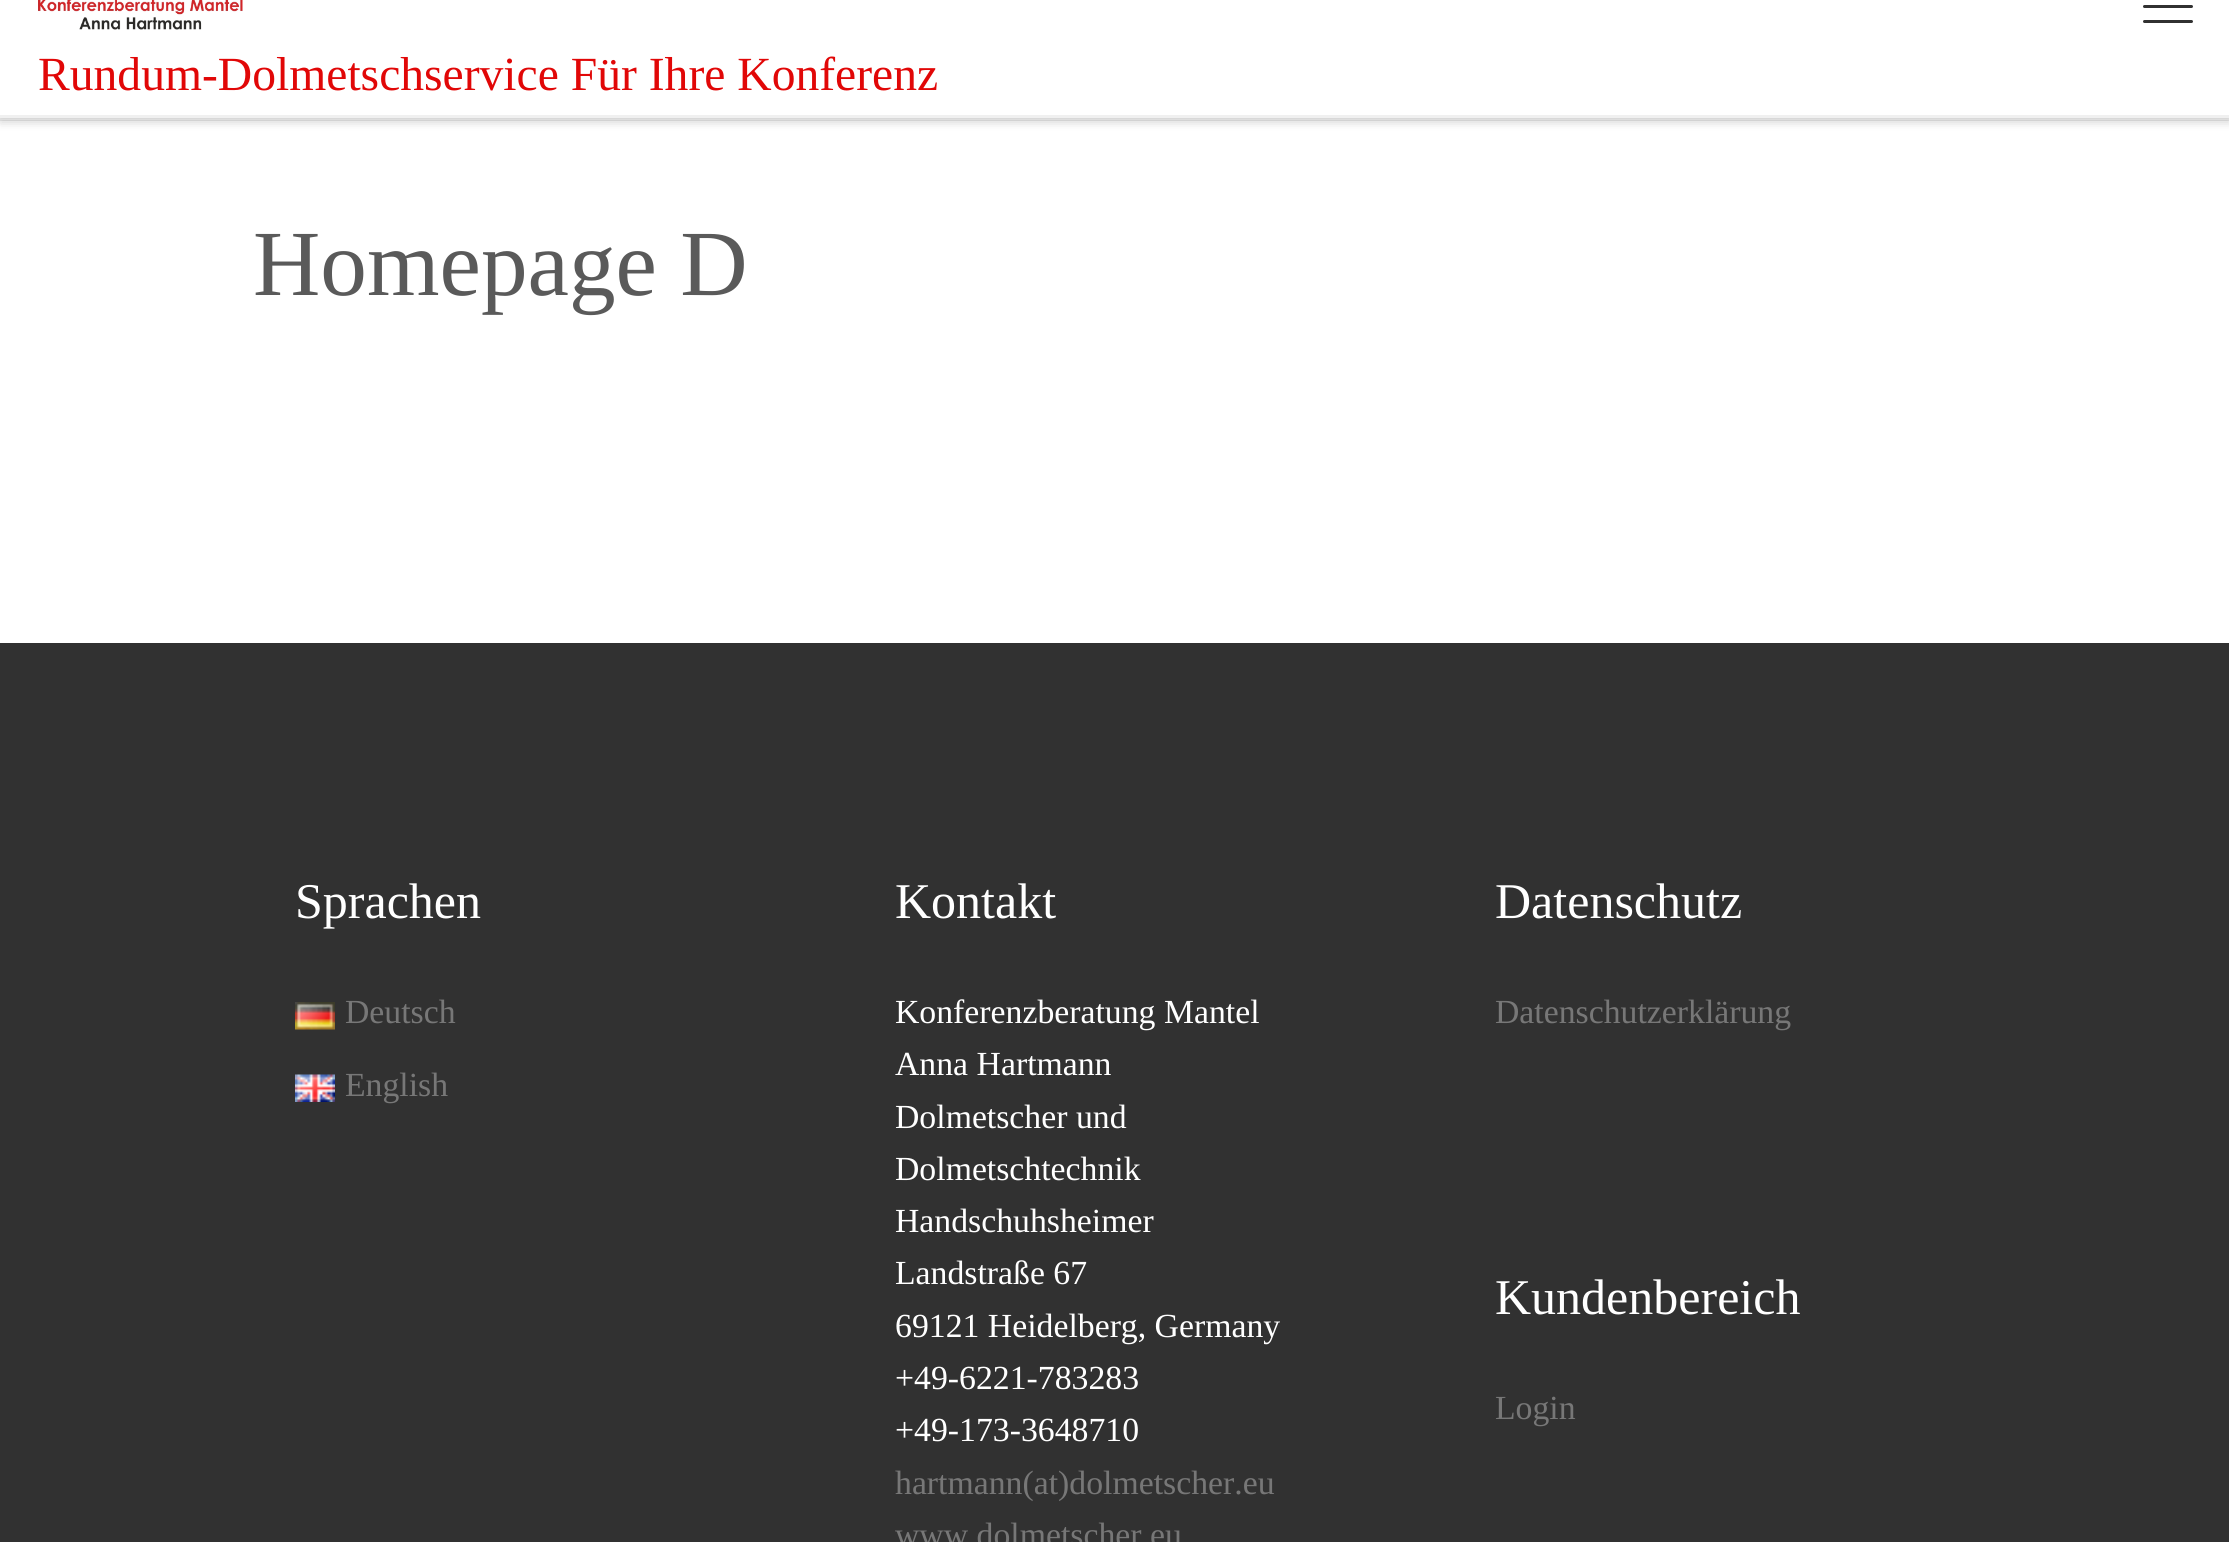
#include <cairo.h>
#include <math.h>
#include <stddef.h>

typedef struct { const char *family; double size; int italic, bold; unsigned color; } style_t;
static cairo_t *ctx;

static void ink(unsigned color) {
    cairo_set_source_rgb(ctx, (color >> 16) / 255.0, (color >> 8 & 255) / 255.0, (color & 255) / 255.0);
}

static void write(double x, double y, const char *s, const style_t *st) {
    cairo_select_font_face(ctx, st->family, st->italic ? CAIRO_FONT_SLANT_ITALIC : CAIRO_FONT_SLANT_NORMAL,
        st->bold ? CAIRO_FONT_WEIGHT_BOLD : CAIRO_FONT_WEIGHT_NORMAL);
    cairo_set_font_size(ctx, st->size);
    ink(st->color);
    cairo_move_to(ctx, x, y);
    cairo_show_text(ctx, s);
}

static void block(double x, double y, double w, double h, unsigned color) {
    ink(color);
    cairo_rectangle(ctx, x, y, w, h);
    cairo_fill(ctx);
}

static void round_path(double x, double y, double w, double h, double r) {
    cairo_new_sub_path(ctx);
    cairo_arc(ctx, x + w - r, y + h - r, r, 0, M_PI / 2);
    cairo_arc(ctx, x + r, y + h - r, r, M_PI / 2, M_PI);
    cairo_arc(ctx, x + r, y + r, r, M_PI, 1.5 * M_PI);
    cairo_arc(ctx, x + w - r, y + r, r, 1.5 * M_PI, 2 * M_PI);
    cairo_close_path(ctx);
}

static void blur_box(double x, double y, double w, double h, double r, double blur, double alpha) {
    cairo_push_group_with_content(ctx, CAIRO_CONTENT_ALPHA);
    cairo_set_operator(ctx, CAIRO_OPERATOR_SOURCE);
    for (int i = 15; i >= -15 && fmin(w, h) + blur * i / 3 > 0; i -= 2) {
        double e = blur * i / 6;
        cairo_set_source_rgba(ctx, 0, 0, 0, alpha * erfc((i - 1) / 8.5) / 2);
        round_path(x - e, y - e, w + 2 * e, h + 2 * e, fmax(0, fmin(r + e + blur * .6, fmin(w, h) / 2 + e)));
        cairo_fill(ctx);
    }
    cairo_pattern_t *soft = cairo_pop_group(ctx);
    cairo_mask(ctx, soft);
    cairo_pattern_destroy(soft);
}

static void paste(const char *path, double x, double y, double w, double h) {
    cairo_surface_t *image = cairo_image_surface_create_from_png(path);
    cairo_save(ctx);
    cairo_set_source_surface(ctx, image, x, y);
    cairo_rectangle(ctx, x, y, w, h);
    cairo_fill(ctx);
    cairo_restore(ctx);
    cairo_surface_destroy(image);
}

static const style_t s1 = {"Liberation Serif", 47.6, 0, 0, 0xe10707};
static const style_t s2 = {"Liberation Serif", 93.25, 0, 0, 0x5a5a5a};
static const style_t s3 = {"Liberation Serif", 50, 0, 0, 0xffffff};
static const style_t s4 = {"Liberation Serif", 33.75, 0, 0, 0x777777};
static const style_t s5 = {"Liberation Serif", 33.75, 0, 0, 0xffffff};

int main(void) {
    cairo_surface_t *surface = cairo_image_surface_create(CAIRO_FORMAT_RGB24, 2229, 1542);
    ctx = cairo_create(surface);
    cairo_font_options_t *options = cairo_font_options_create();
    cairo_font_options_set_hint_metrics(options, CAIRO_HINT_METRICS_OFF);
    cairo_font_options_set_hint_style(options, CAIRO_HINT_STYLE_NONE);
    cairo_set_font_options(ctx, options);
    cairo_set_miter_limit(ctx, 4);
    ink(0xffffff);
    cairo_paint(ctx);
    ink(0x666666);
    blur_box(0, -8, 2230, 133, 0, 2.5, 0.08);
    cairo_set_source_rgba(ctx, 0.192, 0.192, 0.192, 0.09);
    cairo_rectangle(ctx, 0, 120, 2229, 1);
    cairo_fill(ctx);
    block(0, 118, 2229, 2, 0xefefef);
    ink(0x000000);
    blur_box(0, -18, 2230, 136, 0, 6, 0.2);
    block(0, 0, 2229, 115, 0xffffff);
    ink(0x313131);
    round_path(2143, 5, 50, 3, 1.5);
    cairo_fill(ctx);
    round_path(2143, 20, 50, 3, 1.5);
    cairo_fill(ctx);
    paste("pic1.png", 38, 0, 205, 30);
    write(38, 90, "Rundum-Dolmetschservice Für Ihre Konferenz", &s1);
    block(0, 115, 2229, 3, 0xf0f0f0);
    write(253, 295, "Homepage D", &s2);
    block(0, 643, 2229, 899, 0x313131);
    write(295, 918, "Sprachen", &s3);
    paste("pic2.png", 295, 1002, 40, 28);
    write(345, 1023, "Deutsch", &s4);
    paste("pic3.png", 295, 1074, 40, 28);
    write(345, 1096, "English", &s4);
    write(895, 918, "Kontakt", &s3);
    write(895, 1023, "Konferenzberatung Mantel", &s5);
    write(895, 1075, "Anna Hartmann", &s5);
    write(895, 1128, "Dolmetscher und", &s5);
    write(895, 1180, "Dolmetschtechnik", &s5);
    write(895, 1232, "Handschuhsheimer", &s5);
    write(895, 1284, "Landstraße 67", &s5);
    write(895, 1337, "69121 Heidelberg, Germany", &s5);
    write(895, 1389, "+49-6221-783283", &s5);
    write(895, 1441, "+49-173-3648710", &s5);
    write(895, 1494, "hartmann(at)dolmetscher.eu", &s4);
    write(895, 1546, "www.dolmetscher.eu", &s4);
    write(1495, 918, "Datenschutz", &s3);
    write(1495, 1023, "Datenschutzerklärung", &s4);
    write(1495, 1314, "Kundenbereich", &s3);
    write(1495, 1419, "Login", &s4);
    cairo_surface_write_to_png(surface, "screenshot.png");
    cairo_font_options_destroy(options);
    cairo_destroy(ctx);
    cairo_surface_destroy(surface);
    return 0;
}
